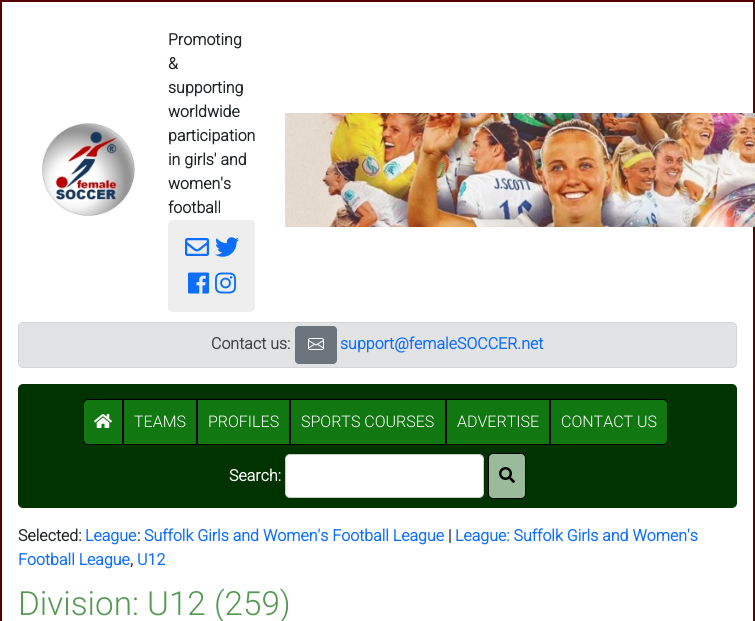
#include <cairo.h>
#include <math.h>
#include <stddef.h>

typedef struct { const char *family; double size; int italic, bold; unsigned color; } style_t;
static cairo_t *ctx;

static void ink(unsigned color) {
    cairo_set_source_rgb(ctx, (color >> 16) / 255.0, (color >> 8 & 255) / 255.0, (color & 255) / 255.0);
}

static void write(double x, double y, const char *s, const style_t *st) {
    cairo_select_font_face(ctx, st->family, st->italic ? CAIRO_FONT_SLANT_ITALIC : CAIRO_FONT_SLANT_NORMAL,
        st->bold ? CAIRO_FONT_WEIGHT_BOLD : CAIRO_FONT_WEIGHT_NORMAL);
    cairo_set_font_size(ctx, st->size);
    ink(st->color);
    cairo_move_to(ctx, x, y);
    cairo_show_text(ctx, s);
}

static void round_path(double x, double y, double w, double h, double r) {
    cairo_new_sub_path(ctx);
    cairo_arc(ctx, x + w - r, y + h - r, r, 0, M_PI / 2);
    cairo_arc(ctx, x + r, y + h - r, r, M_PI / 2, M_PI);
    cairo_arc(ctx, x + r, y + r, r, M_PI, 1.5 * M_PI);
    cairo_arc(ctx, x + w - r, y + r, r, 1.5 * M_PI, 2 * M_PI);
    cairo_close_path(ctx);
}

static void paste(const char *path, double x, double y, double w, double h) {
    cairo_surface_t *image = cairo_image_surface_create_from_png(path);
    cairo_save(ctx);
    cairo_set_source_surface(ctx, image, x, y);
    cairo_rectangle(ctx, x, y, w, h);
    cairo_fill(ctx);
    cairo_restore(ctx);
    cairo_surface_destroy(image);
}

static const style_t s1 = {"Roboto", 16, 0, 1, 0x212529};
static const style_t s2 = {"Roboto", 16, 0, 1, 0x41464b};
static const style_t s3 = {"Roboto", 16, 0, 1, 0x0d6efd};
static const style_t s4 = {"Roboto Light", 16, 0, 0, 0xffffff};
static const style_t s5 = {"Roboto", 16, 0, 1, 0xffffff};
static const style_t s6 = {"Roboto Light", 33.25, 0, 0, 0x559955};

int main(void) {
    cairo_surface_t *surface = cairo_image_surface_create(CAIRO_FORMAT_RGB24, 755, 621);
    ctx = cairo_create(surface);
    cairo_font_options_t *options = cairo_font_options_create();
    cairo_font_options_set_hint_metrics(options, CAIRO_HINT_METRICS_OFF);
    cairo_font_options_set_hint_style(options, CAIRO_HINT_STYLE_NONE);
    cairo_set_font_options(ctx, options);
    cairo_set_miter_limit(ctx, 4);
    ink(0xffffff);
    cairo_paint(ctx);
    cairo_rectangle(ctx, 1, 1, 753, 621);
    ink(0x550000);
    cairo_stroke(ctx);
    paste("pic1.png", 42, 123, 93, 93);
    write(168, 45, "Promoting", &s1);
    write(168, 69, "&", &s1);
    write(168, 93, "supporting", &s1);
    write(168, 117, "worldwide", &s1);
    write(168, 141, "participation", &s1);
    write(168, 165, "in girls' and", &s1);
    write(168, 189, "women's", &s1);
    write(168, 213, "football", &s1);
    ink(0xeeeeee);
    round_path(168, 220, 87, 92, 5);
    cairo_fill(ctx);
    paste("pic2.png", 185, 238, 24, 18);
    paste("pic3.png", 215, 237, 24, 20);
    paste("pic4.png", 188, 272, 21, 22);
    paste("pic5.png", 215, 272, 21, 22);
    paste("pic6.png", 285, 113, 470, 114);
    ink(0xe2e3e5);
    round_path(18.5, 322.5, 718, 45, 4.5);
    cairo_fill_preserve(ctx);
    ink(0xd3d6d8);
    cairo_set_line_width(ctx, 1);
    cairo_stroke(ctx);
    write(211, 349, "Contact us:", &s2);
    ink(0x6c757d);
    round_path(295.5, 326.5, 41, 37, 3.5);
    cairo_fill_preserve(ctx);
    cairo_stroke(ctx);
    paste("pic7.png", 308, 338, 16, 12);
    write(340, 349, "support@femaleSOCCER.net", &s3);
    ink(0x003300);
    round_path(18, 384, 719, 124, 5);
    cairo_fill(ctx);
    ink(0x117711);
    cairo_new_path(ctx);
    cairo_move_to(ctx, 88, 399.5);
    cairo_line_to(ctx, 122.5, 399.5);
    cairo_line_to(ctx, 122.5, 444.5);
    cairo_line_to(ctx, 88, 444.5);
    cairo_curve_to(ctx, 85.5, 444.5, 83.5, 442.5, 83.5, 440);
    cairo_line_to(ctx, 83.5, 404);
    cairo_curve_to(ctx, 83.5, 401.5, 85.5, 399.5, 88, 399.5);
    cairo_close_path(ctx);
    cairo_fill_preserve(ctx);
    ink(0x000000);
    cairo_stroke(ctx);
    paste("pic8.png", 94, 414, 18, 14);
    ink(0x117711);
    cairo_rectangle(ctx, 123.5, 399.5, 73, 45);
    cairo_fill_preserve(ctx);
    ink(0x000000);
    cairo_stroke(ctx);
    write(134, 427, "TEAMS", &s4);
    ink(0x117711);
    cairo_rectangle(ctx, 197.5, 399.5, 92, 45);
    cairo_fill_preserve(ctx);
    ink(0x000000);
    cairo_stroke(ctx);
    write(208, 427, "PROFILES", &s4);
    ink(0x117711);
    cairo_rectangle(ctx, 290.5, 399.5, 155, 45);
    cairo_fill_preserve(ctx);
    ink(0x000000);
    cairo_stroke(ctx);
    write(301, 427, "SPORTS COURSES", &s4);
    ink(0x117711);
    cairo_rectangle(ctx, 446.5, 399.5, 103, 45);
    cairo_fill_preserve(ctx);
    ink(0x000000);
    cairo_stroke(ctx);
    write(457, 427, "ADVERTISE", &s4);
    ink(0x117711);
    cairo_new_path(ctx);
    cairo_move_to(ctx, 550.5, 399.5);
    cairo_line_to(ctx, 663, 399.5);
    cairo_curve_to(ctx, 665.5, 399.5, 667.5, 401.5, 667.5, 404);
    cairo_line_to(ctx, 667.5, 440);
    cairo_curve_to(ctx, 667.5, 442.5, 665.5, 444.5, 663, 444.5);
    cairo_line_to(ctx, 550.5, 444.5);
    cairo_close_path(ctx);
    cairo_fill_preserve(ctx);
    ink(0x000000);
    cairo_stroke(ctx);
    write(561, 427, "CONTACT US", &s4);
    write(229, 481, "Search:", &s5);
    round_path(285.5, 454.5, 198, 43, 4.5);
    cairo_fill_preserve(ctx);
    ink(0xcccccc);
    cairo_stroke(ctx);
    ink(0x99bb99);
    round_path(488.5, 453.5, 37, 45, 4.5);
    cairo_fill_preserve(ctx);
    ink(0x000000);
    cairo_stroke(ctx);
    paste("pic9.png", 499, 467, 16, 16);
    write(18, 541, "Selected:", &s1);
    write(85, 541, "League", &s3);
    write(137, 541, ":", &s1);
    write(144, 541, "Suffolk Girls and Women's Football League", &s3);
    write(448, 541, "|", &s1);
    write(455, 541, "League: Suffolk Girls and Women's", &s3);
    write(18, 565, "Football League", &s3);
    write(130, 565, ",", &s1);
    write(137, 565, "U12", &s3);
    write(18, 615, "Division: U12 (259)", &s6);
    cairo_surface_write_to_png(surface, "screenshot.png");
    cairo_font_options_destroy(options);
    cairo_destroy(ctx);
    cairo_surface_destroy(surface);
    return 0;
}
